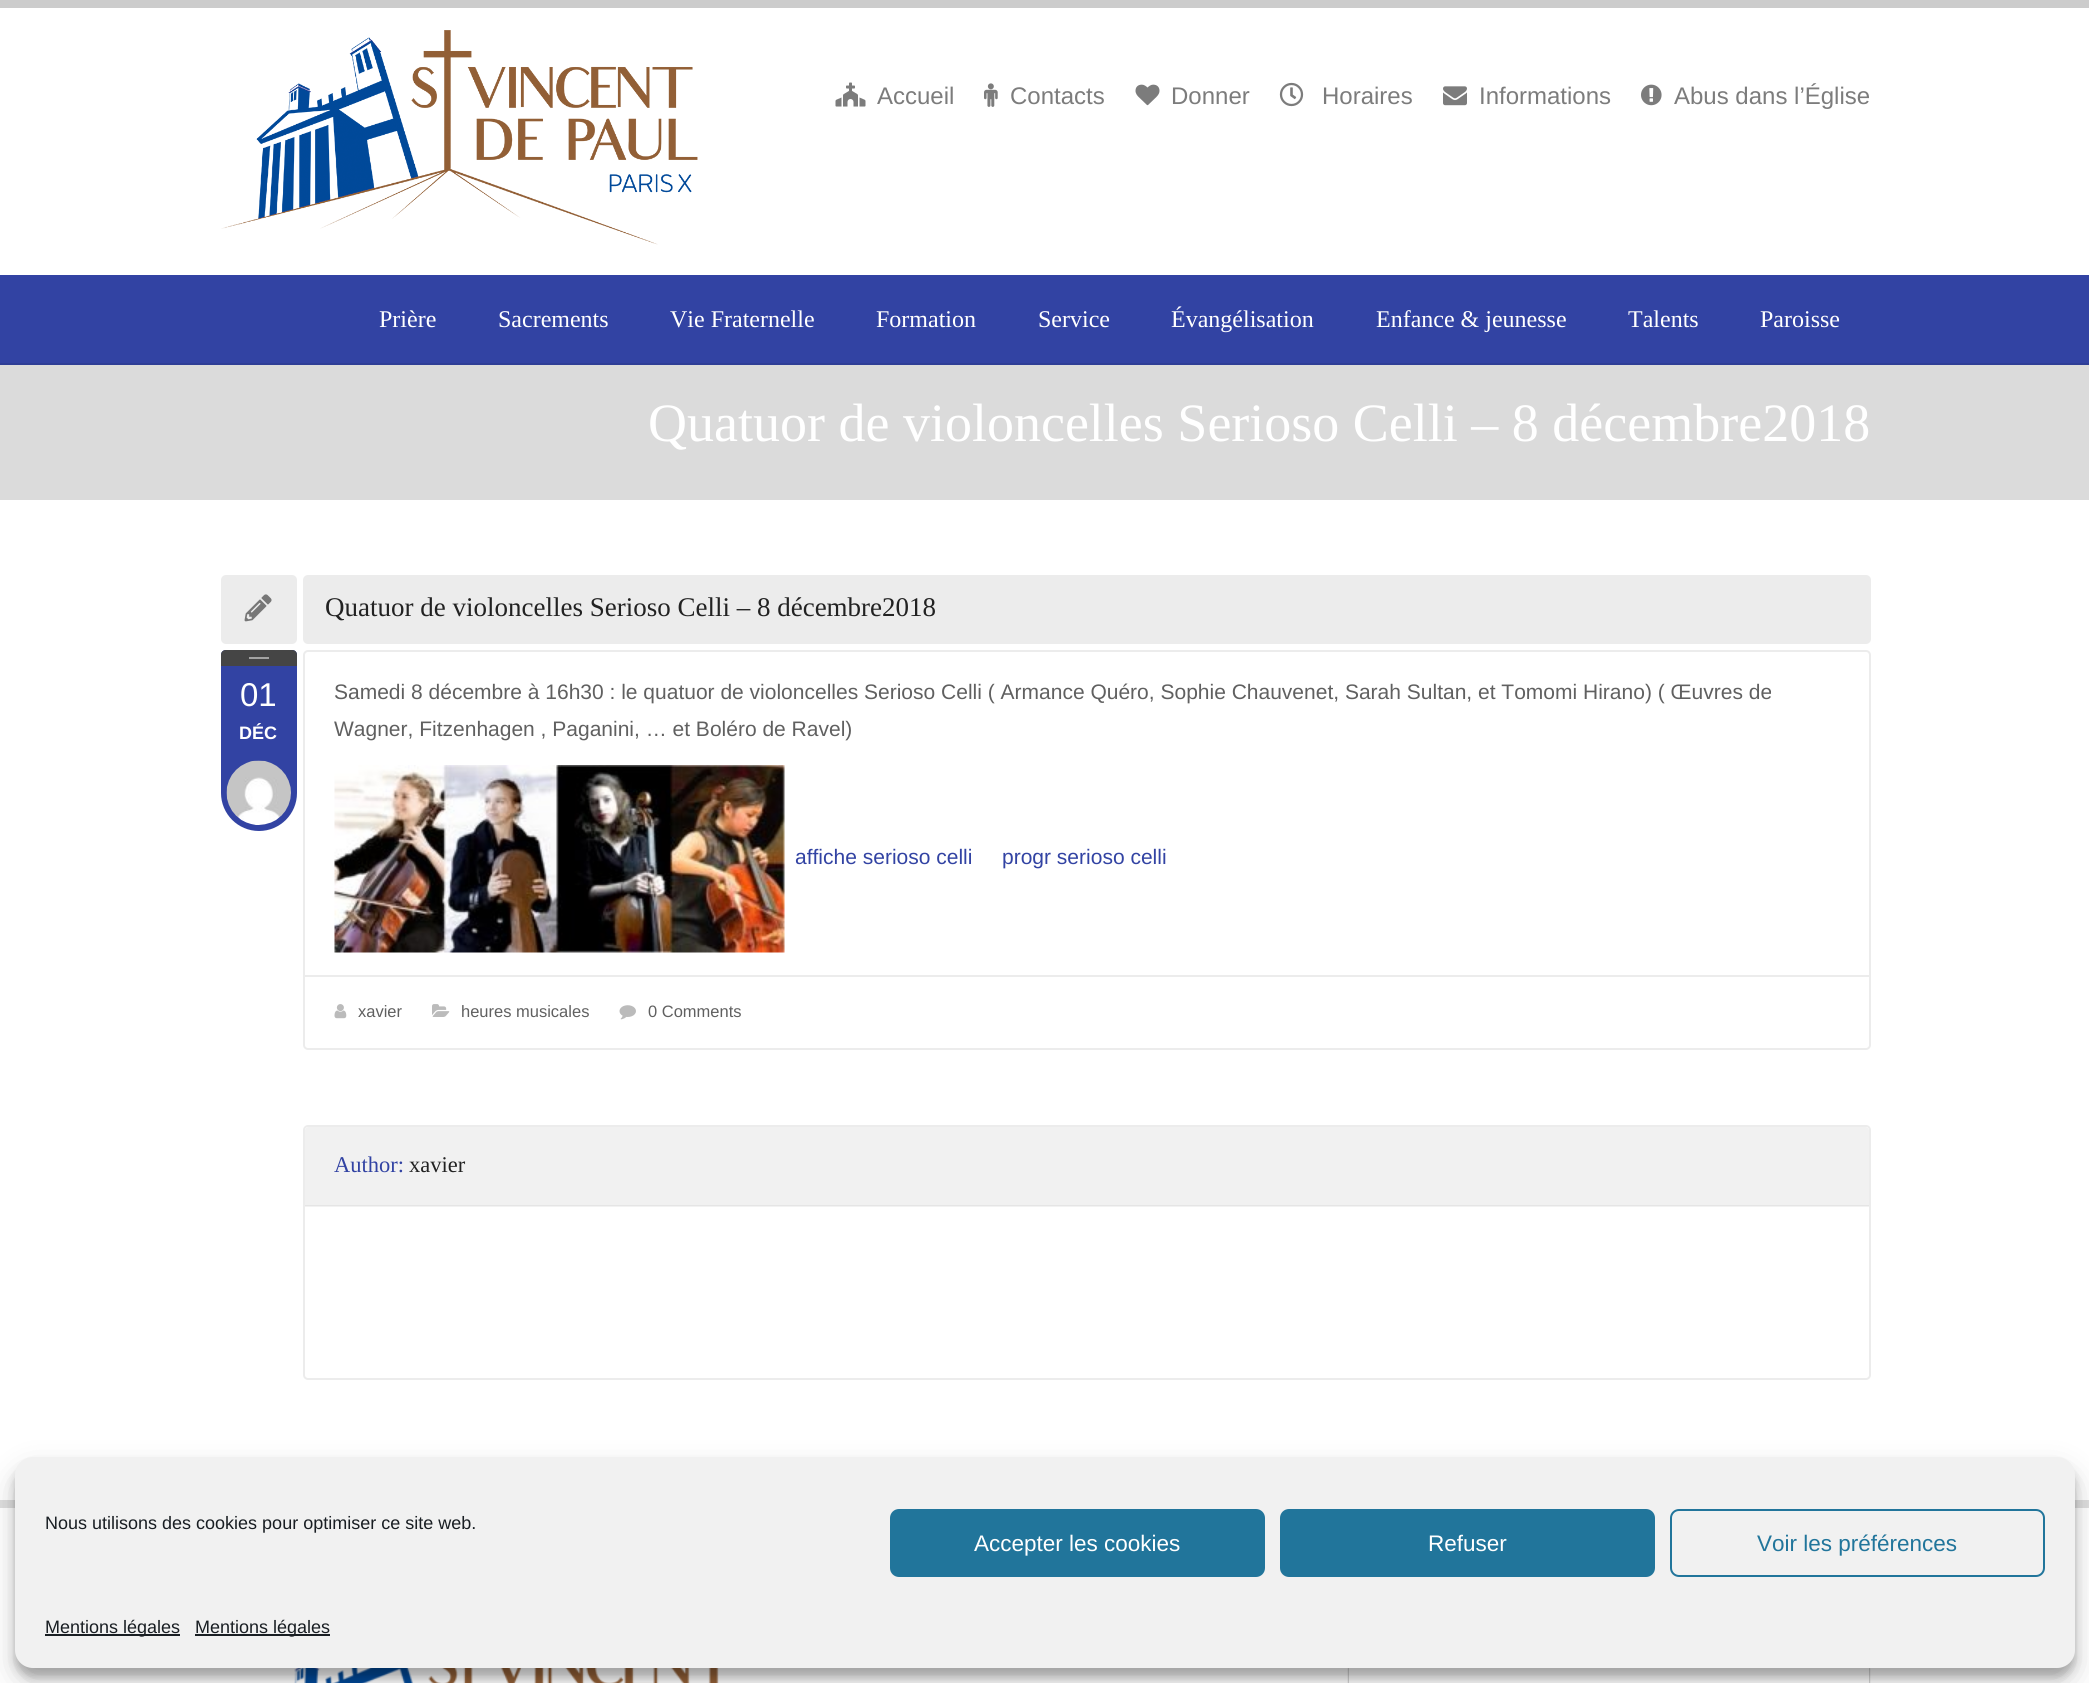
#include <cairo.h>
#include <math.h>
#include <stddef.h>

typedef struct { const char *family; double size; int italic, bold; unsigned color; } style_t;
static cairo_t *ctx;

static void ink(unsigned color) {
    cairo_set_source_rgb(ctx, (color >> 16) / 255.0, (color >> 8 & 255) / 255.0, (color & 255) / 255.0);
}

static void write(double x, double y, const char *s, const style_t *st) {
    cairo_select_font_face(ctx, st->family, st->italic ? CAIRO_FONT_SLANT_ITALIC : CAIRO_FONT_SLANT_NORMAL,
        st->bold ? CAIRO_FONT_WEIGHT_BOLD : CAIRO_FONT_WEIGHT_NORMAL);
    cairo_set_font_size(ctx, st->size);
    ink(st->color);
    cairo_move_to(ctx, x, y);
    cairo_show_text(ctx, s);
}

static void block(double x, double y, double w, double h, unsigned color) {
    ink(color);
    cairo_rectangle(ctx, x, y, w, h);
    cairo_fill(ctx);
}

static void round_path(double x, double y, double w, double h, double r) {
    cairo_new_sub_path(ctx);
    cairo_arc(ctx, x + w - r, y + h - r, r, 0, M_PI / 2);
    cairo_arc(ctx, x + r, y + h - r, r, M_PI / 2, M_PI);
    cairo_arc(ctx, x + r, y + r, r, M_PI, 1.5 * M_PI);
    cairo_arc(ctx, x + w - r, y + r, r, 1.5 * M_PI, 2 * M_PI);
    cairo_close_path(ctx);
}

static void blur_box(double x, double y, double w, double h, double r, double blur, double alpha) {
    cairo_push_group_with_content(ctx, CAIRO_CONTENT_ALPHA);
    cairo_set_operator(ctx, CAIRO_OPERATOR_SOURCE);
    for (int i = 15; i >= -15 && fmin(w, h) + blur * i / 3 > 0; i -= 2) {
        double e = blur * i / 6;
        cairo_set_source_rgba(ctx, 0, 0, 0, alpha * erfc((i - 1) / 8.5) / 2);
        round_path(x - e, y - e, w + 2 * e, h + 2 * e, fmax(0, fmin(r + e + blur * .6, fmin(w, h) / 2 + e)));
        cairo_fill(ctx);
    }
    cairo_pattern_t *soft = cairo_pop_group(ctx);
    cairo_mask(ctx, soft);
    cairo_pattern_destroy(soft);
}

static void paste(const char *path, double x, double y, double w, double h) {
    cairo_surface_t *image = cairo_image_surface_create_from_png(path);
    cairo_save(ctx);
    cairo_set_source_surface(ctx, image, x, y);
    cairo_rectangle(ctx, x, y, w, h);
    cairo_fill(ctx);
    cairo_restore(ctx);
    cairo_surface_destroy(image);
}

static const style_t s1 = {"Liberation Sans", 24, 0, 0, 0x7c7c7c};
static const style_t s2 = {"Liberation Serif", 24, 0, 0, 0xffffff};
static const style_t s3 = {"Liberation Serif", 54, 0, 0, 0xffffff};
static const style_t s4 = {"Liberation Sans", 33, 0, 0, 0xffffff};
static const style_t s5 = {"Liberation Sans", 18, 0, 1, 0xffffff};
static const style_t s6 = {"Liberation Serif", 27, 0, 0, 0x222222};
static const style_t s7 = {"Liberation Sans", 21, 0, 0, 0x606060};
static const style_t s8 = {"Liberation Sans", 21, 0, 0, 0x3243a3};
static const style_t s9 = {"Liberation Sans", 16.5, 0, 0, 0x606060};
static const style_t s10 = {"Liberation Serif", 22.5, 0, 0, 0x3243a3};
static const style_t s11 = {"Liberation Serif", 22.5, 0, 0, 0x222222};
static const style_t s12 = {"Liberation Sans", 18, 0, 0, 0x191e23};
static const style_t s13 = {"Liberation Sans", 22.5, 0, 0, 0xffffff};
static const style_t s14 = {"Liberation Sans", 22.5, 0, 0, 0x21759b};

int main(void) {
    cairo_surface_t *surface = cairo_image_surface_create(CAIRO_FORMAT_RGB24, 2089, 1683);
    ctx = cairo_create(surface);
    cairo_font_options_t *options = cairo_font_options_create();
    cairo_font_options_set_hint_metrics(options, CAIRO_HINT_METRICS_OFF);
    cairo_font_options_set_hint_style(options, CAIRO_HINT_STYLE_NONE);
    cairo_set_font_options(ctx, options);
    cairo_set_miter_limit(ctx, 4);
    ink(0xffffff);
    cairo_paint(ctx);
    block(305, 1206, 1564, 1, 0xf2f2f2);
    block(0, 0, 2089, 8, 0xcccccc);
    paste("pic1.png", 221, 30, 477, 215);
    paste("pic2.png", 835, 82, 31, 25);
    write(877, 104, "Accueil", &s1);
    paste("pic3.png", 984, 83, 14, 24);
    write(1010, 104, "Contacts", &s1);
    paste("pic4.png", 1135, 84, 25, 22);
    write(1171, 104, "Donner", &s1);
    paste("pic5.png", 1279, 82, 25, 25);
    write(1322, 104, "Horaires", &s1);
    paste("pic6.png", 1443, 86, 24, 20);
    write(1479, 104, "Informations", &s1);
    paste("pic7.png", 1641, 84, 21, 22);
    write(1674, 104, "Abus dans l’Église", &s1);
    block(0, 275, 2089, 88, 0x3243a3);
    write(379, 327, "Prière", &s2);
    write(498, 327, "Sacrements", &s2);
    write(670, 327, "Vie Fraternelle", &s2);
    write(876, 327, "Formation", &s2);
    write(1038, 327, "Service", &s2);
    write(1171, 327, "Évangélisation", &s2);
    write(1376, 327, "Enfance & jeunesse", &s2);
    write(1628, 327, "Talents", &s2);
    write(1760, 327, "Paroisse", &s2);
    block(0, 363, 2089, 2, 0x2e3e96);
    block(0, 365, 2089, 135, 0xdbdbdb);
    write(648, 441, "Quatuor de violoncelles Serioso Celli – 8 décembre2018", &s3);
    ink(0xececec);
    round_path(221, 575, 76, 69, 5);
    cairo_fill(ctx);
    paste("pic8.png", 244, 594, 28, 28);
    ink(0x3243a3);
    cairo_new_path(ctx);
    cairo_move_to(ctx, 226, 650);
    cairo_line_to(ctx, 292, 650);
    cairo_curve_to(ctx, 295, 650, 297, 652, 297, 655);
    cairo_line_to(ctx, 297, 793);
    cairo_curve_to(ctx, 297, 814, 280, 831, 259, 831);
    cairo_curve_to(ctx, 238, 831, 221, 814, 221, 793);
    cairo_line_to(ctx, 221, 655);
    cairo_curve_to(ctx, 221, 652, 223, 650, 226, 650);
    cairo_close_path(ctx);
    cairo_fill(ctx);
    ink(0x454545);
    cairo_new_path(ctx);
    cairo_move_to(ctx, 226, 650);
    cairo_line_to(ctx, 292, 650);
    cairo_curve_to(ctx, 295, 650, 297, 652, 297, 655);
    cairo_line_to(ctx, 297, 666);
    cairo_line_to(ctx, 221, 666);
    cairo_line_to(ctx, 221, 655);
    cairo_curve_to(ctx, 221, 652, 223, 650, 226, 650);
    cairo_close_path(ctx);
    cairo_fill(ctx);
    block(249, 657, 20, 2, 0xa2a2a2);
    write(240, 706, "01", &s4);
    write(239, 739, "DÉC", &s5);
    paste("pic9.png", 226, 760, 65, 65);
    ink(0xececec);
    round_path(303, 575, 1568, 69, 5);
    cairo_fill(ctx);
    write(325, 616, "Quatuor de violoncelles Serioso Celli – 8 décembre2018", &s6);
    round_path(304, 651, 1566, 398, 4);
    ink(0xececec);
    cairo_stroke(ctx);
    write(334, 699, "Samedi 8 décembre à 16h30 : le quatuor de violoncelles Serioso Celli ( Armance Quéro, Sophie Chauvenet, Sarah Sultan, et Tomomi Hirano) ( Œuvres de", &s7);
    write(334, 736, "Wagner, Fitzenhagen , Paganini, … et Boléro de Ravel)", &s7);
    paste("pic10.png", 334, 765, 451, 188);
    write(795, 864, "affiche serioso celli", &s8);
    write(1002, 864, "progr serioso celli", &s8);
    block(305, 975, 1564, 2, 0xececec);
    paste("pic11.png", 334, 1004, 13, 15);
    write(358, 1017, "xavier", &s9);
    paste("pic12.png", 432, 1004, 18, 13);
    write(461, 1017, "heures musicales", &s9);
    paste("pic13.png", 619, 1005, 17, 15);
    write(648, 1017, "0 Comments", &s9);
    round_path(304, 1126, 1566, 253, 4);
    ink(0xececec);
    cairo_stroke(ctx);
    ink(0xf1f1f1);
    cairo_new_path(ctx);
    cairo_move_to(ctx, 308, 1127);
    cairo_line_to(ctx, 1866, 1127);
    cairo_curve_to(ctx, 1867.5, 1127, 1869, 1128.5, 1869, 1130);
    cairo_line_to(ctx, 1869, 1206);
    cairo_line_to(ctx, 305, 1206);
    cairo_line_to(ctx, 305, 1130);
    cairo_curve_to(ctx, 305, 1128.5, 306.5, 1127, 308, 1127);
    cairo_close_path(ctx);
    cairo_fill(ctx);
    block(305, 1205, 1564, 1, 0xe5e5e5);
    write(334, 1172, "Author:", &s10);
    write(409, 1172, "xavier", &s11);
    block(0, 1500, 2089, 8, 0xdedede);
    paste("pic14.png", 294, 1668, 425, 15);
    ink(0x000000);
    blur_box(1349, 1664, 520, 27, 5, 1, 0.5);
    block(1349, 1668, 520, 15, 0xffffff);
    ink(0x000000);
    blur_box(15, 1466, 2060, 211, 18, 4.5, 0.23);
    blur_box(15, 1472, 2060, 211, 18, 15, 0.19);
    ink(0xf1f1f1);
    round_path(15, 1457, 2060, 211, 18);
    cairo_fill(ctx);
    write(45, 1529, "Nous utilisons des cookies pour optimiser ce site web.", &s12);
    ink(0x21759b);
    round_path(891, 1510, 373, 66, 8);
    cairo_fill_preserve(ctx);
    cairo_stroke(ctx);
    write(974, 1551, "Accepter les cookies", &s13);
    ink(0x21759b);
    round_path(1281, 1510, 373, 66, 8);
    cairo_fill_preserve(ctx);
    cairo_stroke(ctx);
    write(1428, 1551, "Refuser", &s13);
    round_path(1671, 1510, 373, 66, 8);
    ink(0x21759b);
    cairo_stroke(ctx);
    write(1757, 1551, "Voir les préférences", &s14);
    block(45, 1634, 135, 2, 0x191e23);
    write(45, 1633, "Mentions légales", &s12);
    block(195, 1634, 135, 2, 0x191e23);
    write(195, 1633, "Mentions légales", &s12);
    cairo_surface_write_to_png(surface, "screenshot.png");
    cairo_font_options_destroy(options);
    cairo_destroy(ctx);
    cairo_surface_destroy(surface);
    return 0;
}
